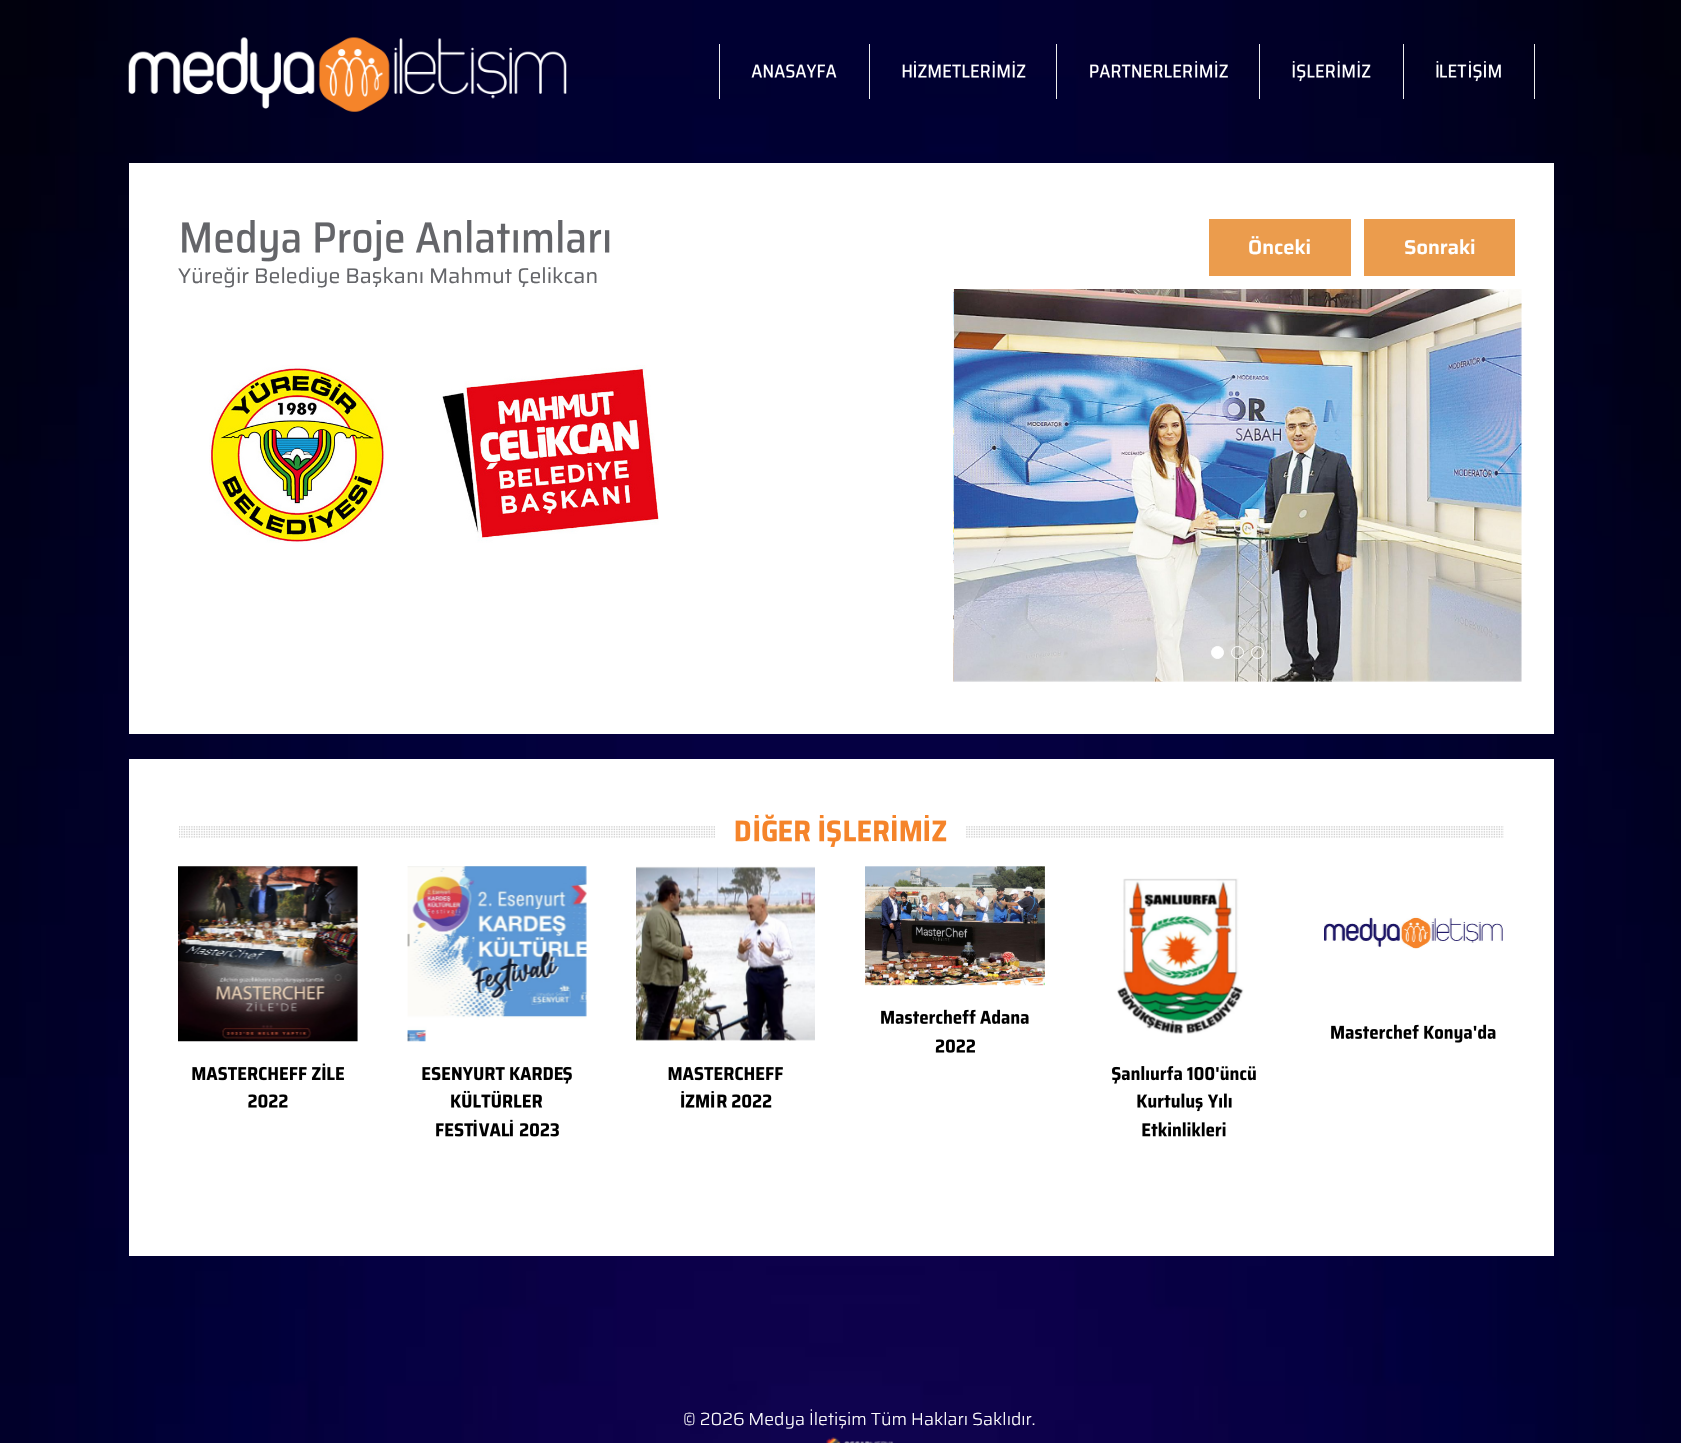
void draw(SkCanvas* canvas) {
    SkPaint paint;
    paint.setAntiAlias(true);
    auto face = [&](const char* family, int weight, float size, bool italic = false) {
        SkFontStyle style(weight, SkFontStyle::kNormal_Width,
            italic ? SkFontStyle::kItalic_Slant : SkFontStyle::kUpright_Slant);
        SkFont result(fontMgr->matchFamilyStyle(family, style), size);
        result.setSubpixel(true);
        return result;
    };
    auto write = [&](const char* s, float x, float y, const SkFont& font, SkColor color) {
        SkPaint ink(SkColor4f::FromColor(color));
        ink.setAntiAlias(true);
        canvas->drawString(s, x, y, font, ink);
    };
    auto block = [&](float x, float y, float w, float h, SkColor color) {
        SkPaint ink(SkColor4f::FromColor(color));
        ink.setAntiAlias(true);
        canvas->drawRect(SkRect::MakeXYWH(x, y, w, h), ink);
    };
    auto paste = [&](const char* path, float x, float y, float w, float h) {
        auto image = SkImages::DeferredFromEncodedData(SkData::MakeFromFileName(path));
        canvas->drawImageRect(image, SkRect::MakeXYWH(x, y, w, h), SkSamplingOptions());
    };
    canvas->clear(SK_ColorWHITE);
    paste("pic1.png", 0, 0, 1681, 1443);
    paste("pic2.png", 128, 37, 439, 75);
    block(869, 44, 1, 55, SkColorSetRGB(238, 238, 238));
    block(719, 44, 1, 55, SkColorSetRGB(238, 238, 238));
    paste("pic3.png", 751, 64, 86, 14);
    block(1056, 44, 1, 55, SkColorSetRGB(238, 238, 238));
    paste("pic4.png", 902, 64, 10, 14);
    paste("pic5.png", 914, 61, 2, 17);
    paste("pic6.png", 918, 64, 72, 14);
    paste("pic7.png", 992, 61, 3, 17);
    paste("pic8.png", 997, 64, 13, 14);
    paste("pic9.png", 1012, 61, 3, 17);
    paste("pic10.png", 1017, 64, 9, 14);
    block(1259, 44, 1, 55, SkColorSetRGB(238, 238, 238));
    paste("pic11.png", 1090, 64, 103, 14);
    paste("pic12.png", 1195, 61, 3, 17);
    paste("pic13.png", 1200, 64, 13, 14);
    paste("pic12.png", 1215, 61, 3, 17);
    paste("pic14.png", 1219, 64, 9, 14);
    block(1403, 44, 1, 55, SkColorSetRGB(238, 238, 238));
    paste("pic15.png", 1292, 61, 14, 21);
    paste("pic16.png", 1307, 64, 28, 14);
    paste("pic17.png", 1337, 61, 3, 17);
    paste("pic18.png", 1342, 64, 13, 14);
    paste("pic19.png", 1357, 61, 3, 17);
    paste("pic20.png", 1362, 64, 9, 14);
    block(1534, 44, 1, 55, SkColorSetRGB(238, 238, 238));
    paste("pic21.png", 1436, 61, 3, 17);
    paste("pic22.png", 1440, 64, 27, 14);
    paste("pic23.png", 1469, 61, 17, 21);
    paste("pic24.png", 1488, 64, 13, 14);
    block(129, 163, 1425, 571, SK_ColorWHITE);
    block(1209, 219, 142, 57, SkColorSetRGB(235, 156, 77));
    auto kFont1 = face("Saira", 600, 20);
    write("Önceki", 1248, 254, kFont1, SK_ColorWHITE);
    block(1364, 219, 151, 57, SkColorSetRGB(235, 156, 77));
    write("Sonraki", 1404, 254, kFont1, SK_ColorWHITE);
    paste("pic25.png", 182, 220, 428, 42);
    auto kFont2 = face("Saira", 400, 21.25f);
    write("Yüreğir Belediye Başkanı Mahmut Çelikcan", 178, 283, kFont2, SkColorSetRGB(100, 101, 105));
    paste("pic26.png", 209, 365, 450, 179);
    paste("pic27.png", 953, 289, 2, 393);
    paste("pic28.png", 954, 289, 568, 393);
    paint.setColor(SK_ColorWHITE);
    canvas->drawCircle(1217.5f, 652.5f, 6, paint);
    paint.setStyle(SkPaint::kStroke_Style);
    paint.setStrokeWidth(1);
    canvas->drawCircle(1217.5f, 652.5f, 6, paint);
    canvas->drawCircle(1237.5f, 652.5f, 6, paint);
    canvas->drawCircle(1257.5f, 652.5f, 6, paint);
    block(129, 759, 1425, 497, SK_ColorWHITE);
    paste("pic29.png", 179, 826, 1325, 12);
    block(715, 826, 251, 12, SK_ColorWHITE);
    paste("pic30.png", 735, 820, 16, 22);
    paste("pic31.png", 754, 814, 23, 28);
    paste("pic32.png", 779, 820, 31, 22);
    paste("pic33.png", 819, 815, 22, 32);
    paste("pic34.png", 844, 820, 45, 22);
    paint.setStyle(SkPaint::kFill_Style);
    paint.setColor(SkColorSetRGB(245, 132, 42));
    canvas->drawPath(SkPathBuilder().moveTo(892, 841).lineTo(892, 820.5f).lineTo(896.5f, 820.5f).lineTo(896.5f, 841).close().moveTo(892.5f, 818).lineTo(892.5f, 815).lineTo(896, 815).lineTo(896, 818).close().detach(), paint);
    paste("pic35.png", 900, 820, 22, 22);
    canvas->drawPath(SkPathBuilder().moveTo(924.5f, 841).lineTo(924.5f, 820.5f).lineTo(929, 820.5f).lineTo(929, 841).close().moveTo(925, 818).lineTo(925, 815).lineTo(928.5f, 815).lineTo(928.5f, 818).close().detach(), paint);
    paste("pic36.png", 932, 820, 15, 22);
    paste("pic37.png", 178, 866, 180, 176);
    paste("pic38.png", 192, 1066, 129, 15);
    paste("pic39.png", 322, 1063, 4, 17);
    paste("pic40.png", 327, 1067, 17, 13);
    paste("pic41.png", 248, 1094, 40, 14);
    paste("pic42.png", 407, 866, 180, 176);
    paste("pic43.png", 422, 1066, 141, 15);
    paste("pic44.png", 563, 1066, 9, 18);
    paste("pic45.png", 451, 1090, 92, 18);
    paste("pic46.png", 436, 1123, 38, 14);
    paste("pic47.png", 473, 1119, 4, 18);
    paste("pic48.png", 479, 1123, 31, 14);
    paste("pic49.png", 509, 1119, 4, 18);
    paste("pic50.png", 519, 1123, 40, 14);
    paste("pic51.png", 636, 866, 179, 175);
    paste("pic52.png", 668, 1066, 115, 15);
    paste("pic53.png", 681, 1091, 4, 17);
    paste("pic54.png", 685, 1094, 24, 14);
    paste("pic53.png", 711, 1091, 4, 17);
    paste("pic55.png", 717, 1094, 10, 14);
    paste("pic56.png", 732, 1094, 40, 14);
    paste("pic57.png", 865, 866, 180, 120);
    paste("pic58.png", 881, 1009, 148, 15);
    paste("pic59.png", 935, 1039, 40, 14);
    paste("pic60.png", 1117, 878, 127, 156);
    paste("pic61.png", 1112, 1066, 9, 18);
    paste("pic62.png", 1121, 1066, 135, 15);
    paste("pic63.png", 1137, 1093, 58, 15);
    paste("pic64.png", 1195, 1097, 8, 15);
    paste("pic65.png", 1207, 1093, 25, 15);
    paste("pic66.png", 1142, 1122, 84, 15);
    paste("pic67.png", 1324, 916, 179, 33);
    paste("pic68.png", 1331, 1024, 165, 19);
    auto kFont3 = face("Saira", 300, 17.5f);
    write("© 2026 Medya İletişim Tüm Hakları Saklıdır.", 683, 1425, kFont3, SK_ColorWHITE);
    paste("pic69.png", 826, 1437, 68, 6);
}
